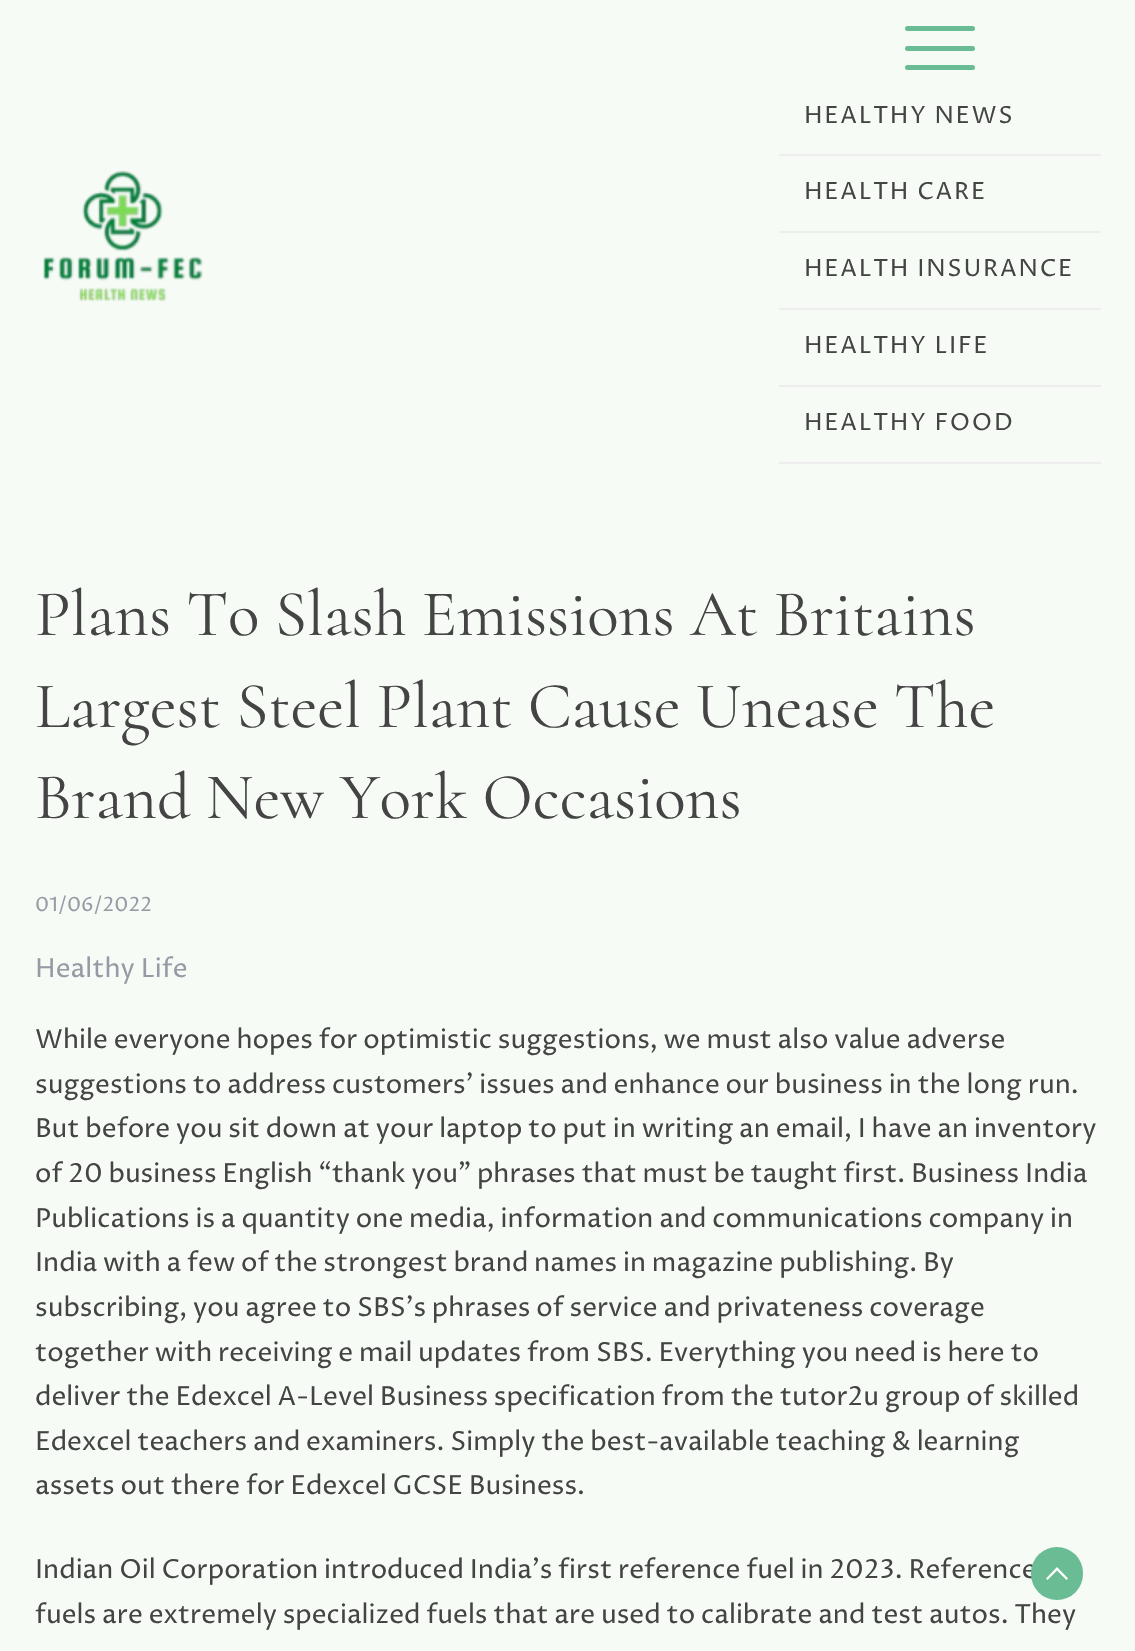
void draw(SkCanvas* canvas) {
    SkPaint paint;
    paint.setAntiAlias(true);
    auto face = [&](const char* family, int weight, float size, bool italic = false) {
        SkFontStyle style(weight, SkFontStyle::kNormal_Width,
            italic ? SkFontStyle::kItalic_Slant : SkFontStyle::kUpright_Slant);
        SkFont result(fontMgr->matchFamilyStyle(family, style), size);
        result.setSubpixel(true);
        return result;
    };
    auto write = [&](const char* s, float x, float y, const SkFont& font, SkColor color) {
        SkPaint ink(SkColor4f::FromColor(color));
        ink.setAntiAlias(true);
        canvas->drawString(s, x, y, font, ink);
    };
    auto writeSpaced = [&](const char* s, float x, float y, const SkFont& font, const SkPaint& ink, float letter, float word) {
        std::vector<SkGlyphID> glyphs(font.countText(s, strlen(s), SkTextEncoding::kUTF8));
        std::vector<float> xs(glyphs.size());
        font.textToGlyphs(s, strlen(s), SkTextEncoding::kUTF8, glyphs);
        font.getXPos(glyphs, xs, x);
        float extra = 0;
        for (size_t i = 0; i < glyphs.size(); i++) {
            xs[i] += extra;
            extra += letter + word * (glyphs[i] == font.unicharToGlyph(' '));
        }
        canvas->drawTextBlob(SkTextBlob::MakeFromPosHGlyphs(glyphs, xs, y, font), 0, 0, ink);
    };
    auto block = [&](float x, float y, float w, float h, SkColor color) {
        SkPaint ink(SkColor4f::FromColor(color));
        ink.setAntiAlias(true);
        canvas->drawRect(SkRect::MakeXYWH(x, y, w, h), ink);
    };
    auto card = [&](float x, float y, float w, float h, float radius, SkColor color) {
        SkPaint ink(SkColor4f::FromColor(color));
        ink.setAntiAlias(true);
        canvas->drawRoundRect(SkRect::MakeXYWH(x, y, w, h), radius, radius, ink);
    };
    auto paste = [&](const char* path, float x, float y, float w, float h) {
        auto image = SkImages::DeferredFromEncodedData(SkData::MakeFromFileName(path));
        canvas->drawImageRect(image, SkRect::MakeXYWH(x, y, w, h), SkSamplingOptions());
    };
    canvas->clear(SkColorSetRGB(246, 251, 246));
    paste("pic1.png", 43, 170, 160, 132);
    card(905, 26, 70, 5, 2.5f, SkColorSetRGB(105, 188, 147));
    card(905, 46, 70, 5, 2.5f, SkColorSetRGB(105, 188, 147));
    card(905, 65, 70, 5, 2.5f, SkColorSetRGB(105, 188, 147));
    block(779, 154, 322, 2, SkColorSetRGB(238, 238, 238));
    auto kFont1 = face("Proza Libre", 400, 23.6f);
    paint.setColor(SkColorSetRGB(68, 68, 68));
    writeSpaced("HEALTHY NEWS", 804, 123, kFont1, paint, 1.75f, 0);
    block(779, 231, 322, 2, SkColorSetRGB(238, 238, 238));
    writeSpaced("HEALTH CARE", 804, 199, kFont1, paint, 1.75f, 0);
    block(779, 308, 322, 2, SkColorSetRGB(238, 238, 238));
    writeSpaced("HEALTH INSURANCE", 804, 276, kFont1, paint, 1.75f, 0);
    block(779, 385, 322, 2, SkColorSetRGB(238, 238, 238));
    writeSpaced("HEALTHY LIFE", 804, 353, kFont1, paint, 1.75f, 0);
    block(779, 462, 322, 2, SkColorSetRGB(238, 238, 238));
    writeSpaced("HEALTHY FOOD", 804, 430, kFont1, paint, 1.75f, 0);
    auto kFont2 = face("Cormorant", 400, 65.6f);
    write("Plans To Slash Emissions At Britains", 35, 635, kFont2, SkColorSetRGB(68, 68, 68));
    write("Largest Steel Plant Cause Unease The", 35, 727, kFont2, SkColorSetRGB(68, 68, 68));
    write("Brand New York Occasions", 35, 818, kFont2, SkColorSetRGB(68, 68, 68));
    auto kFont3 = face("Proza Libre", 400, 19.75f);
    write("01/06/2022", 35, 911, kFont3, SkColorSetRGB(150, 154, 165));
    auto kFont4 = face("Proza Libre", 400, 26.25f);
    write("Healthy Life", 35, 977, kFont4, SkColorSetRGB(150, 154, 165));
    write("While everyone hopes for optimistic suggestions, we must also value adverse", 35, 1048, kFont4, SkColorSetRGB(68, 68, 68));
    write("suggestions to address customers’ issues and enhance our business in the long run.", 35, 1093, kFont4, SkColorSetRGB(68, 68, 68));
    write("But before you sit down at your laptop to put in writing an email, I have an inventory", 35, 1137, kFont4, SkColorSetRGB(68, 68, 68));
    write("of 20 business English “thank you” phrases that must be taught first. Business India", 35, 1182, kFont4, SkColorSetRGB(68, 68, 68));
    write("Publications is a quantity one media, information and communications company in", 35, 1227, kFont4, SkColorSetRGB(68, 68, 68));
    write("India with a few of the strongest brand names in magazine publishing. By", 35, 1271, kFont4, SkColorSetRGB(68, 68, 68));
    write("subscribing, you agree to SBS’s phrases of service and privateness coverage", 35, 1316, kFont4, SkColorSetRGB(68, 68, 68));
    write("together with receiving e mail updates from SBS. Everything you need is here to", 35, 1361, kFont4, SkColorSetRGB(68, 68, 68));
    write("deliver the Edexcel A-Level Business specification from the tutor2u group of skilled", 35, 1405, kFont4, SkColorSetRGB(68, 68, 68));
    write("Edexcel teachers and examiners. Simply the best-available teaching & learning", 35, 1450, kFont4, SkColorSetRGB(68, 68, 68));
    write("assets out there for Edexcel GCSE Business.", 35, 1494, kFont4, SkColorSetRGB(68, 68, 68));
    write("Indian Oil Corporation introduced India’s first reference fuel in 2023. Reference", 35, 1578, kFont4, SkColorSetRGB(68, 68, 68));
    write("fuels are extremely specialized fuels that are used to calibrate and test autos. They", 35, 1623, kFont4, SkColorSetRGB(68, 68, 68));
    card(1031, 1547, 52, 53, 26, SkColorSetRGB(105, 188, 147));
    paint.setColor(SK_ColorWHITE);
    canvas->drawPath(SkPathBuilder().moveTo(1068, 1578.5f).lineTo(1066.5f, 1580).lineTo(1057, 1570.5f).lineTo(1047.5f, 1580).lineTo(1046, 1578.5f).lineTo(1057, 1567).lineTo(1068, 1578.5f).detach(), paint);
}
